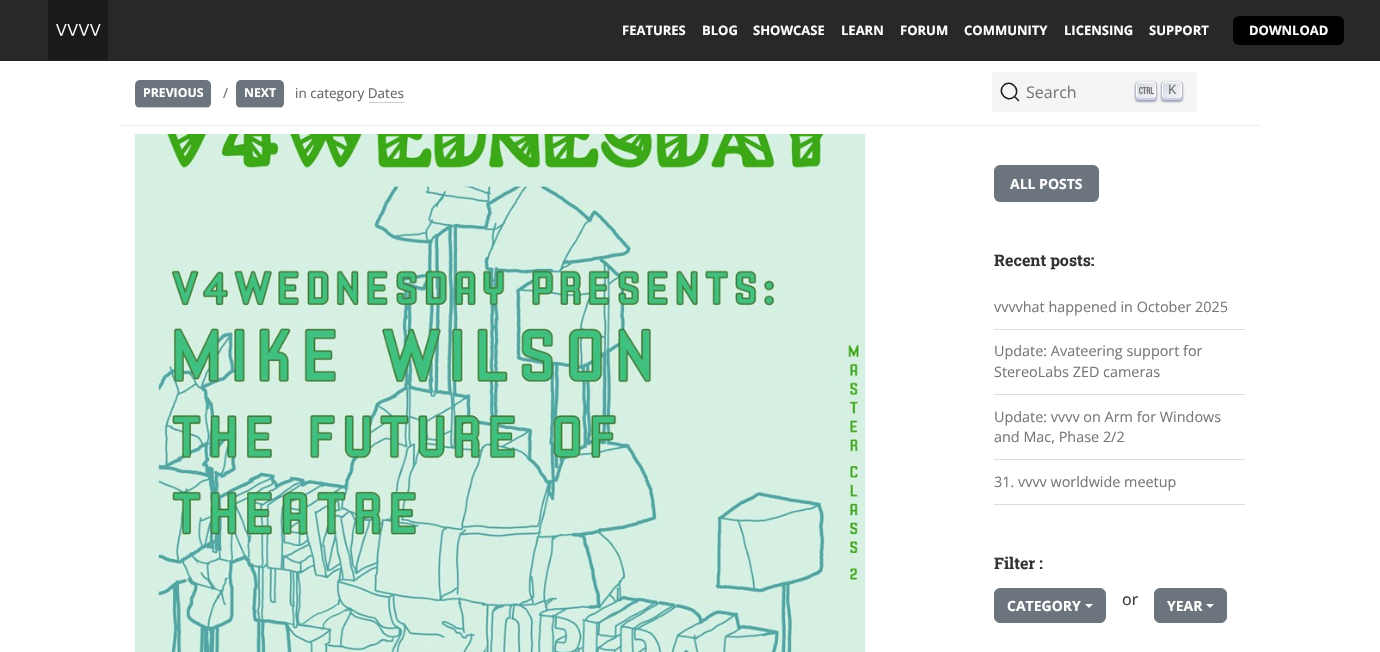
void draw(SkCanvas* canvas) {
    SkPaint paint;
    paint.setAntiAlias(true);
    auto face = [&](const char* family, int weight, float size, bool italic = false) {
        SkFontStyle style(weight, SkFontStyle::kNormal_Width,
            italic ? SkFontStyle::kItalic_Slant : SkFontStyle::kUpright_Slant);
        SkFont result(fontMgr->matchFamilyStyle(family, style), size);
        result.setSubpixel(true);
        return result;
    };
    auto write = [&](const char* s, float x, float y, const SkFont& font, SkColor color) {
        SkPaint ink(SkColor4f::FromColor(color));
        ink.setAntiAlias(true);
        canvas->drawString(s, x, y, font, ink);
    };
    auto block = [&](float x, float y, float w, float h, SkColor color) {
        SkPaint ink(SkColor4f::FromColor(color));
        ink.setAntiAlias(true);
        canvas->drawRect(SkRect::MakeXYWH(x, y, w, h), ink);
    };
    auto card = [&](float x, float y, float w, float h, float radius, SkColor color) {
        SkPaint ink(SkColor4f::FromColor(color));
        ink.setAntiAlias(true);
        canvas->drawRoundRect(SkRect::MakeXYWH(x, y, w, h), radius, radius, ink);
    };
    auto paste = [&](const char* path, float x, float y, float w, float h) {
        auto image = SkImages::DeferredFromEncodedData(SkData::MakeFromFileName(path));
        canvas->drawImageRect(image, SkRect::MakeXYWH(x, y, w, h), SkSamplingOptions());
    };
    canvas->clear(SK_ColorWHITE);
    block(0, 0, 1380, 60, SkColorSetRGB(40, 40, 40));
    block(0, 60, 1380, 1, SkColorSetRGB(34, 34, 34));
    paste("pic1.png", 48, 0, 60, 60);
    auto kFont1 = face("Open Sans", 700, 13);
    write("FEATURES", 622, 35, kFont1, SK_ColorWHITE);
    write("BLOG", 702, 35, kFont1, SK_ColorWHITE);
    write("SHOWCASE", 753, 35, kFont1, SK_ColorWHITE);
    write("LEARN", 841, 35, kFont1, SK_ColorWHITE);
    write("FORUM", 900, 35, kFont1, SK_ColorWHITE);
    write("COMMUNITY", 964, 35, kFont1, SK_ColorWHITE);
    write("LICENSING", 1064, 35, kFont1, SK_ColorWHITE);
    write("SUPPORT", 1149, 35, kFont1, SK_ColorWHITE);
    card(1233, 16, 111, 29, 6, SK_ColorBLACK);
    write("DOWNLOAD", 1249, 35, kFont1, SK_ColorWHITE);
    block(120, 125, 1140, 1, SkColorSetRGB(238, 238, 238));
    card(135, 80, 76, 28, 5, SkColorSetRGB(108, 117, 125));
    block(138, 107, 71, 1, SkColorSetRGB(204, 204, 204));
    auto kFont2 = face("Open Sans", 700, 12.25f);
    write("PREVIOUS", 143, 97, kFont2, SK_ColorWHITE);
    auto kFont3 = face("Open Sans", 400, 13.5f);
    write("/", 223, 98, kFont3, SkColorSetRGB(102, 102, 102));
    card(236, 80, 48, 28, 5, SkColorSetRGB(108, 117, 125));
    block(239, 107, 43, 1, SkColorSetRGB(204, 204, 204));
    write("NEXT", 244, 97, kFont2, SK_ColorWHITE);
    write("in category Dates", 295, 98, kFont3, SkColorSetRGB(102, 102, 102));
    block(369, 102, 36, 1, SkColorSetRGB(204, 204, 204));
    card(992, 72, 205, 40, 4, SkColorSetRGB(245, 245, 245));
    paint.setStyle(SkPaint::kStroke_Style);
    paint.setStrokeWidth(1.6f);
    paint.setStrokeCap(SkPaint::kRound_Cap);
    paint.setStrokeJoin(SkPaint::kRound_Join);
    paint.setColor(SkColorSetRGB(28, 30, 33));
    canvas->drawPath(SkPathBuilder().moveTo(1014.5f, 96.5f).lineTo(1018.5f, 100.5f).lineTo(1014.5f, 96.5f).cubicTo(1007.5f, 103.5f, 996.5f, 92.5f, 1003.5f, 85.5f).cubicTo(1010.5f, 78.5f, 1021.5f, 89.5f, 1014.5f, 96.5f).close().detach(), paint);
    auto kFont4 = face("Open Sans", 400, 16);
    write("Search", 1026, 98, kFont4, SkColorSetRGB(119, 119, 119));
    paint.setStyle(SkPaint::kFill_Style);
    paint.setColor(SkColorSetARGB(102, 30, 35, 90));
    paint.setMaskFilter(SkMaskFilter::MakeBlur(kNormal_SkBlurStyle, 1));
    canvas->drawRoundRect(SkRect::MakeXYWH(1135, 82, 22, 20), 4, 4, paint);
    paint.setMaskFilter(nullptr);
    {
        const SkColor colors[] = {SkColorSetRGB(213, 219, 228), SkColorSetRGB(248, 248, 248)};
        const float stops[] = {0, 1};
        const SkPoint ends[] = {{1137, 82}, {1156, 101}};
        paint.setShader(SkGradientShader::MakeLinear(ends, colors, stops, 2, SkTileMode::kClamp));
        paint.setAlpha(255);
    }
    canvas->drawRoundRect(SkRect::MakeXYWH(1136.5f, 82.5f, 19, 17), 2.5f, 2.5f, paint);
    paint.setStyle(SkPaint::kStroke_Style);
    paint.setStrokeWidth(1);
    paint.setStrokeCap(SkPaint::kButt_Cap);
    paint.setStrokeJoin(SkPaint::kMiter_Join);
    paint.setShader(nullptr);
    paint.setColor(SK_ColorWHITE);
    canvas->drawRoundRect(SkRect::MakeXYWH(1136.5f, 82.5f, 19, 17), 2.5f, 2.5f, paint);
    paint.setStyle(SkPaint::kFill_Style);
    paint.setColor(SkColorSetRGB(205, 205, 230));
    canvas->drawPath(SkPathBuilder().moveTo(1156, 94.5f).cubicTo(1156, 97, 1154.5f, 98, 1151, 98).lineTo(1139, 98).cubicTo(1137, 98, 1136, 96.5f, 1136, 94.5f).lineTo(1136, 97).cubicTo(1136, 98.5f, 1137.5f, 100, 1139, 100).lineTo(1153, 100).cubicTo(1154.5f, 100, 1156, 98.5f, 1156, 97).close().detach(), paint);
    paste("pic2.png", 1139, 86, 15, 9);
    paint.setColor(SkColorSetARGB(102, 30, 35, 90));
    paint.setMaskFilter(SkMaskFilter::MakeBlur(kNormal_SkBlurStyle, 1));
    canvas->drawRoundRect(SkRect::MakeXYWH(1161, 82, 22, 20), 4, 4, paint);
    paint.setMaskFilter(nullptr);
    {
        const SkColor colors[] = {SkColorSetRGB(213, 219, 228), SkColorSetRGB(248, 248, 248)};
        const float stops[] = {0, 1};
        const SkPoint ends[] = {{1163, 82}, {1182, 101}};
        paint.setShader(SkGradientShader::MakeLinear(ends, colors, stops, 2, SkTileMode::kClamp));
        paint.setAlpha(255);
    }
    canvas->drawRoundRect(SkRect::MakeXYWH(1162.5f, 82.5f, 19, 17), 2.5f, 2.5f, paint);
    paint.setStyle(SkPaint::kStroke_Style);
    paint.setShader(nullptr);
    paint.setColor(SK_ColorWHITE);
    canvas->drawRoundRect(SkRect::MakeXYWH(1162.5f, 82.5f, 19, 17), 2.5f, 2.5f, paint);
    paint.setStyle(SkPaint::kFill_Style);
    paint.setColor(SkColorSetRGB(205, 205, 230));
    canvas->drawPath(SkPathBuilder().moveTo(1182, 94.5f).cubicTo(1182, 97, 1180.5f, 98, 1177, 98).lineTo(1165, 98).cubicTo(1163, 98, 1162, 96.5f, 1162, 94.5f).lineTo(1162, 97).cubicTo(1162, 98.5f, 1163.5f, 100, 1165, 100).lineTo(1179, 100).cubicTo(1180.5f, 100, 1182, 98.5f, 1182, 97).close().detach(), paint);
    auto kFont5 = face("Liberation Mono", 400, 14);
    write("K", 1168, 94, kFont5, SkColorSetRGB(119, 119, 119));
    paste("pic3.png", 135, 134, 730, 518);
    card(994, 165, 105, 37, 6, SkColorSetRGB(108, 117, 125));
    auto kFont6 = face("Open Sans", 700, 14);
    write("ALL POSTS", 1010, 189, kFont6, SK_ColorWHITE);
    auto kFont7 = face("Roboto Slab", 700, 16);
    write("Recent posts:", 994, 266, kFont7, SkColorSetRGB(51, 51, 51));
    block(994, 329, 251, 1, SkColorSetRGB(221, 221, 221));
    auto kFont8 = face("Open Sans", 400, 14.4f);
    write("vvvvhat happened in October 2025", 994, 312, kFont8, SkColorSetRGB(119, 119, 119));
    block(994, 394, 251, 1, SkColorSetRGB(221, 221, 221));
    write("Update: Avateering support for", 994, 356, kFont8, SkColorSetRGB(119, 119, 119));
    write("StereoLabs ZED cameras", 994, 377, kFont8, SkColorSetRGB(119, 119, 119));
    block(994, 459, 251, 1, SkColorSetRGB(221, 221, 221));
    write("Update: vvvv on Arm for Windows", 994, 422, kFont8, SkColorSetRGB(119, 119, 119));
    write("and Mac, Phase 2/2", 994, 442, kFont8, SkColorSetRGB(119, 119, 119));
    block(994, 504, 251, 1, SkColorSetRGB(221, 221, 221));
    write("31. vvvv worldwide meetup", 994, 487, kFont8, SkColorSetRGB(119, 119, 119));
    write("Filter :", 994, 569, kFont7, SkColorSetRGB(51, 51, 51));
    paint.setColor(SkColorSetRGB(108, 117, 125));
    canvas->drawRoundRect(SkRect::MakeXYWH(994.5f, 588.5f, 111, 34), 5.5f, 5.5f, paint);
    paint.setStyle(SkPaint::kStroke_Style);
    canvas->drawRoundRect(SkRect::MakeXYWH(994.5f, 588.5f, 111, 34), 5.5f, 5.5f, paint);
    write("CATEGORY", 1007, 611, kFont6, SK_ColorWHITE);
    paint.setStyle(SkPaint::kFill_Style);
    paint.setColor(SK_ColorWHITE);
    canvas->drawPath(SkPathBuilder().moveTo(1085, 604).lineTo(1093, 604).lineTo(1089, 608).close().detach(), paint);
    write("or", 1122, 605, kFont4, SkColorSetRGB(51, 51, 51));
    paint.setColor(SkColorSetRGB(108, 117, 125));
    canvas->drawRoundRect(SkRect::MakeXYWH(1154.5f, 588.5f, 72, 34), 5.5f, 5.5f, paint);
    paint.setStyle(SkPaint::kStroke_Style);
    canvas->drawRoundRect(SkRect::MakeXYWH(1154.5f, 588.5f, 72, 34), 5.5f, 5.5f, paint);
    write("YEAR", 1167, 611, kFont6, SK_ColorWHITE);
    paint.setStyle(SkPaint::kFill_Style);
    paint.setColor(SK_ColorWHITE);
    canvas->drawPath(SkPathBuilder().moveTo(1206, 604).lineTo(1214, 604).lineTo(1210, 608).close().detach(), paint);
}
